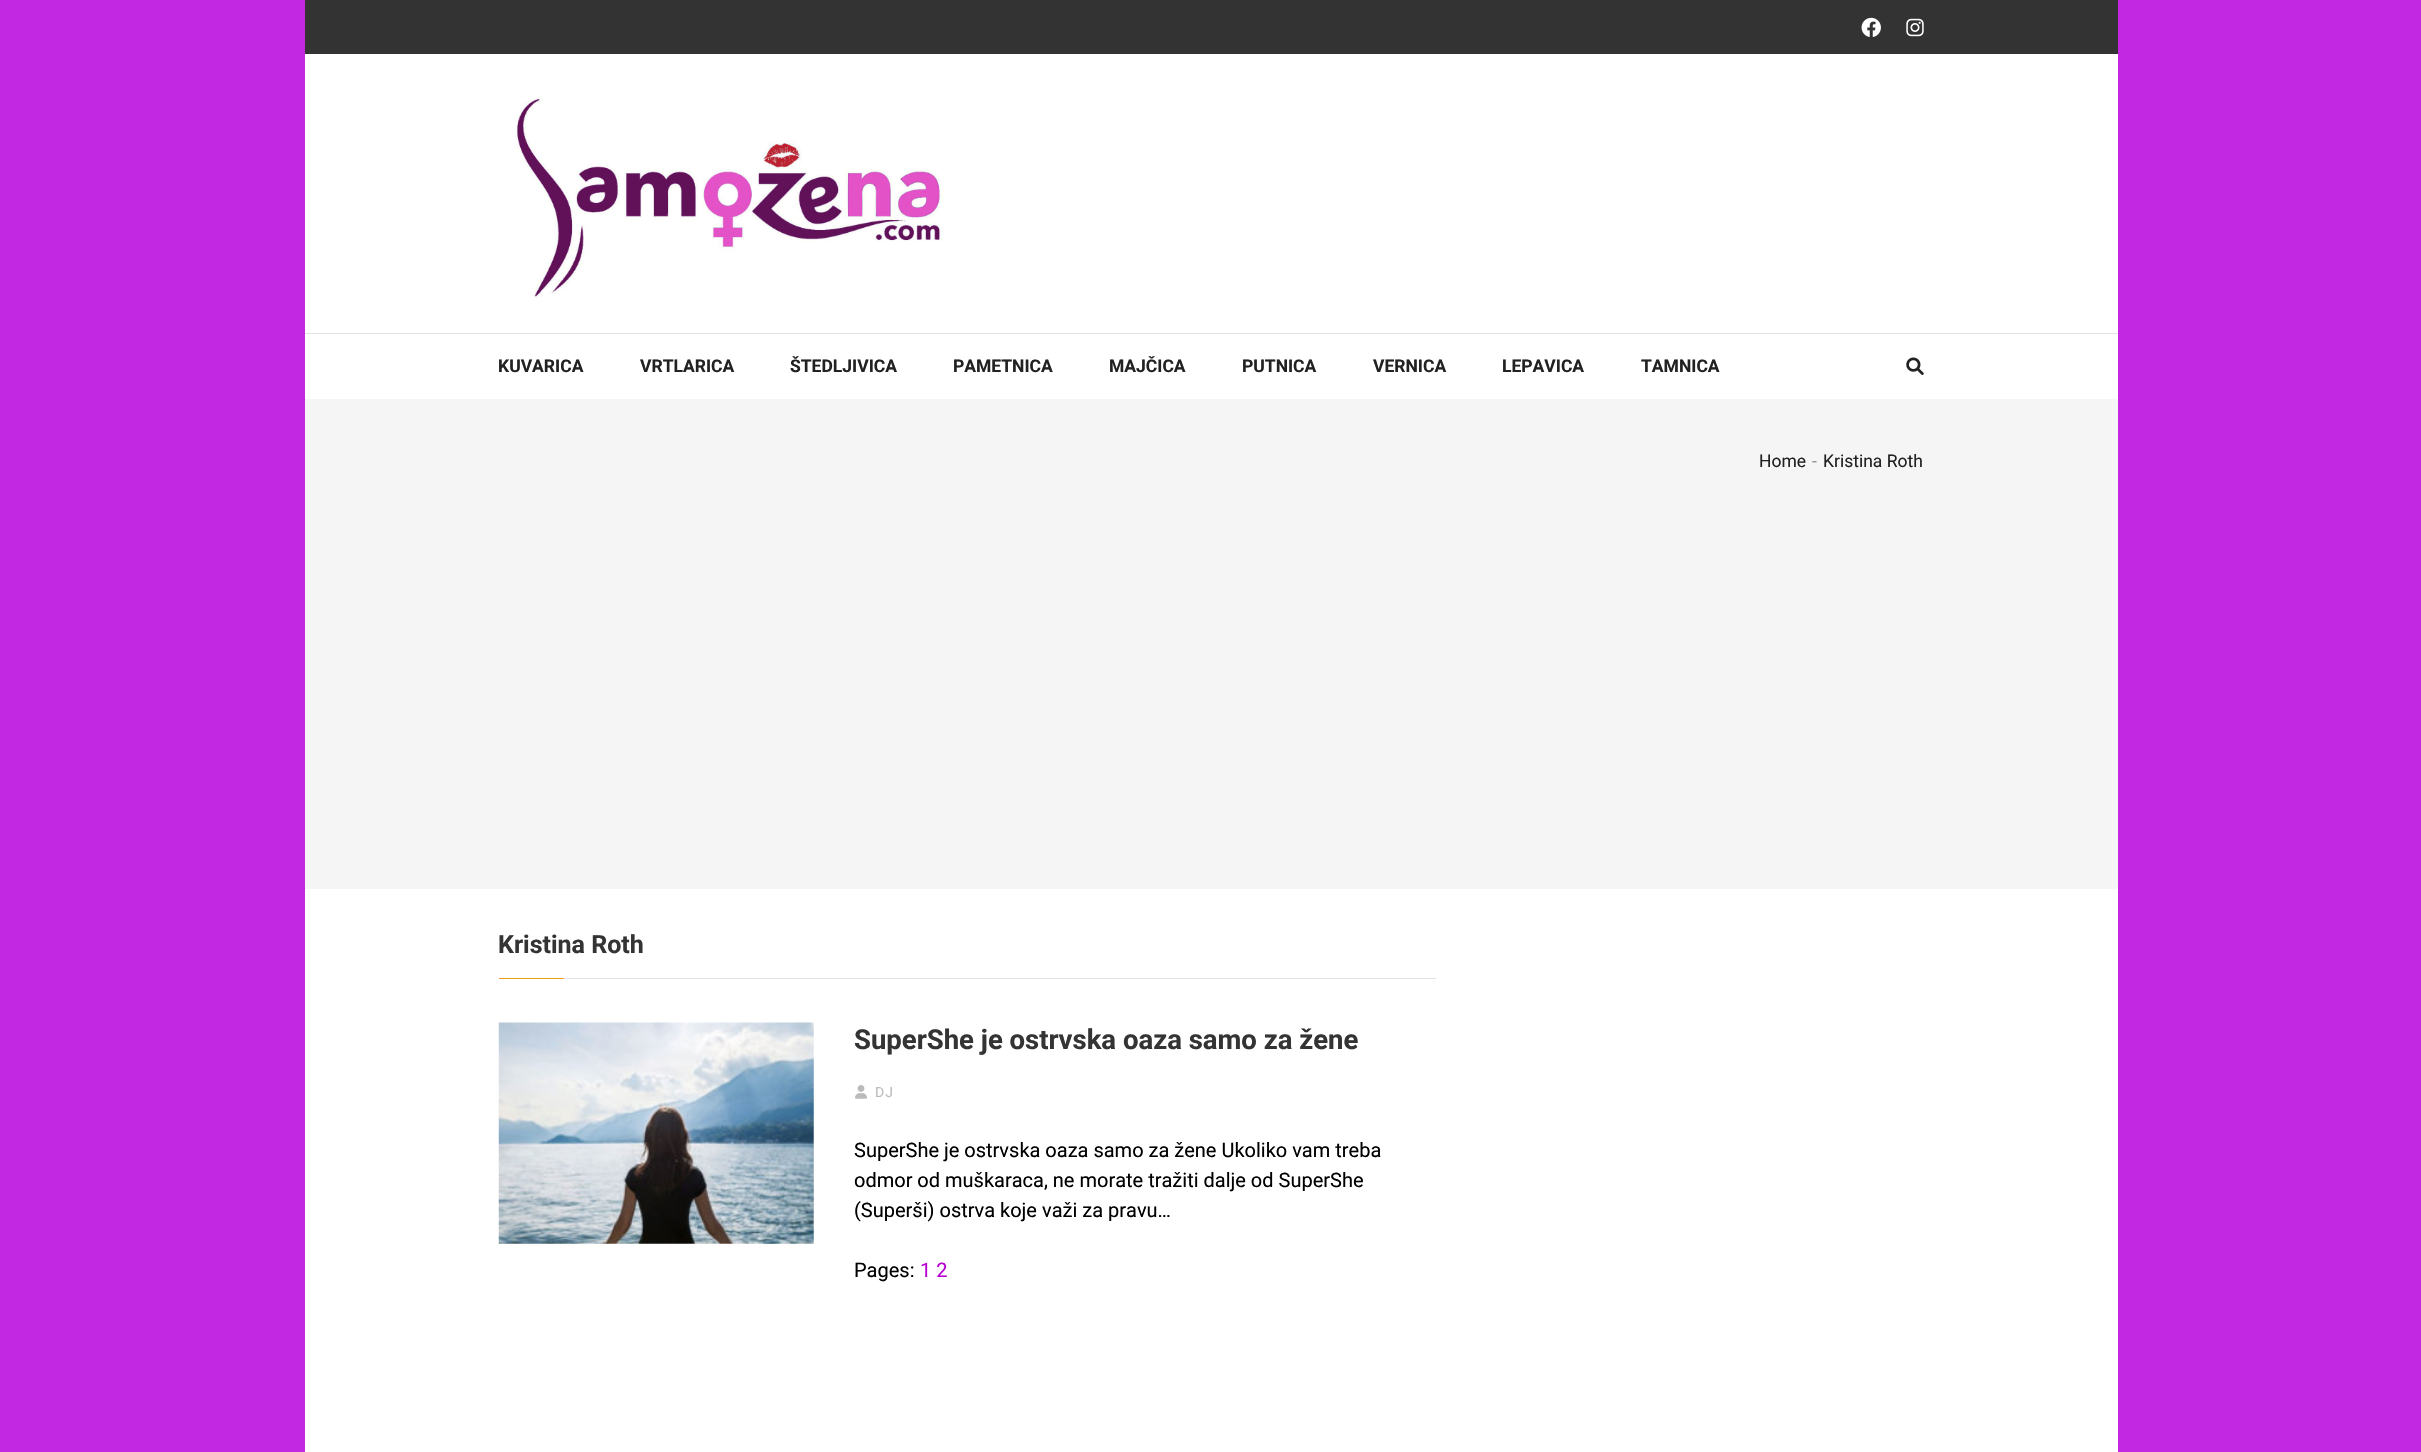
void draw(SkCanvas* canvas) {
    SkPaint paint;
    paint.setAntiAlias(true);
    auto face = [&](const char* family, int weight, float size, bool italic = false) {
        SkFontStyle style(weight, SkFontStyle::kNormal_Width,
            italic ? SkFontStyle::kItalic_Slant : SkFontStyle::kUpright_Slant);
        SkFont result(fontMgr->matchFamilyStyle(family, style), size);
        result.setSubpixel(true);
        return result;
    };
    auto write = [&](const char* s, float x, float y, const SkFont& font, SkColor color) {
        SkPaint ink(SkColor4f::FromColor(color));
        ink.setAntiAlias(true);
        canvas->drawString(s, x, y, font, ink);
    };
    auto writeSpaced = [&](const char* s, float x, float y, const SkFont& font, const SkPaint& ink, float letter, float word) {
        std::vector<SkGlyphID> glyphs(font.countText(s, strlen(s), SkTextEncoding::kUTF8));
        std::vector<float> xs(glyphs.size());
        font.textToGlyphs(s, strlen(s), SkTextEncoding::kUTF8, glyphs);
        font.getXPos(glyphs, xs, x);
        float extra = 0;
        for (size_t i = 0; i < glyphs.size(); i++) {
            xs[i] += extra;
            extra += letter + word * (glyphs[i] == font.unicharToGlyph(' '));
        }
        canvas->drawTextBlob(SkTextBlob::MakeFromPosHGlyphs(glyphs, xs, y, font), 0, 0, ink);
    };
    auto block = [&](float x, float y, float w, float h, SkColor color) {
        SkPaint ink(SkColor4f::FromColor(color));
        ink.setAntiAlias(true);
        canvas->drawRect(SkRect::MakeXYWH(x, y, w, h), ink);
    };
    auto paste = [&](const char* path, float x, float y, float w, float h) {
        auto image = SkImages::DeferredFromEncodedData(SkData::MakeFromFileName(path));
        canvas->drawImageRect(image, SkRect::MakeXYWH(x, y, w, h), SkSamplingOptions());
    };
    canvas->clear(SkColorSetRGB(194, 39, 225));
    block(305, 54, 1813, 1398, SK_ColorWHITE);
    block(305, 0, 1813, 54, SkColorSetRGB(51, 51, 51));
    paste("pic1.png", 1861, 17, 20, 20);
    paste("pic2.png", 1906, 18, 18, 19);
    block(305, 333, 1813, 1, SkColorSetRGB(227, 227, 227));
    paste("pic3.png", 515, 96, 430, 204);
    auto kFont1 = face("Roboto", 700, 17.5f);
    write("KUVARICA", 498, 372, kFont1, SkColorSetRGB(34, 34, 34));
    write("VRTLARICA", 640, 372, kFont1, SkColorSetRGB(34, 34, 34));
    write("ŠTEDLJIVICA", 790, 372, kFont1, SkColorSetRGB(34, 34, 34));
    write("PAMETNICA", 953, 372, kFont1, SkColorSetRGB(34, 34, 34));
    write("MAJČICA", 1109, 372, kFont1, SkColorSetRGB(34, 34, 34));
    write("PUTNICA", 1242, 372, kFont1, SkColorSetRGB(34, 34, 34));
    write("VERNICA", 1373, 372, kFont1, SkColorSetRGB(34, 34, 34));
    write("LEPAVICA", 1502, 372, kFont1, SkColorSetRGB(34, 34, 34));
    write("TAMNICA", 1641, 372, kFont1, SkColorSetRGB(34, 34, 34));
    paste("pic4.png", 1906, 357, 18, 18);
    block(305, 399, 1813, 490, SkColorSetRGB(245, 245, 245));
    auto kFont2 = face("Roboto", 400, 17.5f);
    write("Home", 1759, 467, kFont2, SkColorSetRGB(34, 34, 34));
    write("-", 1812, 467, kFont2, SkColorSetRGB(145, 145, 145));
    write("Kristina Roth", 1823, 467, kFont2, SkColorSetRGB(34, 34, 34));
    block(564, 978, 872, 1, SkColorSetRGB(227, 227, 227));
    auto kFont3 = face("Roboto", 700, 25);
    write("Kristina Roth", 498, 953, kFont3, SkColorSetRGB(52, 52, 52));
    block(499, 978, 65, 1, SkColorSetRGB(238, 159, 30));
    paste("pic5.png", 498, 1022, 316, 222);
    auto kFont4 = face("Roboto", 700, 27.5f);
    write("SuperShe je ostrvska oaza samo za žene", 854, 1049, kFont4, SkColorSetRGB(52, 52, 52));
    paste("pic6.png", 855, 1085, 12, 14);
    auto kFont5 = face("Roboto", 400, 14);
    paint.setColor(SkColorSetRGB(187, 187, 187));
    writeSpaced("DJ", 875, 1097, kFont5, paint, 1, 0);
    auto kFont6 = face("Roboto", 400, 20);
    write("SuperShe je ostrvska oaza samo za žene Ukoliko vam treba", 854, 1157, kFont6, SK_ColorBLACK);
    write("odmor od muškaraca, ne morate tražiti dalje od SuperShe", 854, 1187, kFont6, SK_ColorBLACK);
    write("(Superši) ostrva koje važi za pravu…", 854, 1217, kFont6, SK_ColorBLACK);
    write("Pages:", 854, 1277, kFont6, SK_ColorBLACK);
    write("1 2", 920, 1277, kFont6, SkColorSetRGB(184, 0, 209));
}
